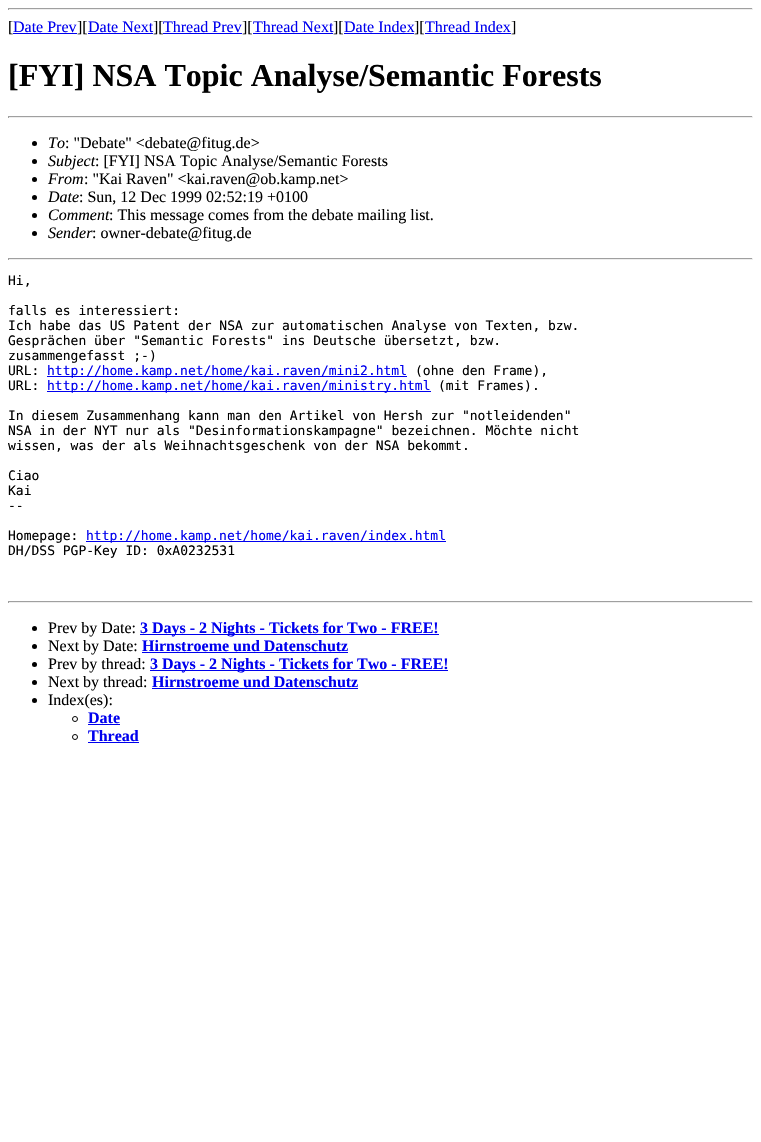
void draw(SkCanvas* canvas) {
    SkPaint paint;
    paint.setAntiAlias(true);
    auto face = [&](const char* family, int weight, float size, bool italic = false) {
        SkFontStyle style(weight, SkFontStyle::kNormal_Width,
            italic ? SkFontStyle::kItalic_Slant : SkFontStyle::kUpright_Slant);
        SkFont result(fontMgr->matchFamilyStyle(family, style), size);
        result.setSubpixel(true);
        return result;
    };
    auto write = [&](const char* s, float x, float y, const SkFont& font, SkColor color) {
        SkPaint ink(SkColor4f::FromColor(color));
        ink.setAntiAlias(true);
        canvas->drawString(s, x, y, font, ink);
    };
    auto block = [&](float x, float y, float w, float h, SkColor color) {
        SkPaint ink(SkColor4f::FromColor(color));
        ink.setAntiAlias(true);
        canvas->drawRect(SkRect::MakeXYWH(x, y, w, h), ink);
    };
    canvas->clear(SK_ColorWHITE);
    block(8, 8, 745, 1, SkColorSetRGB(159, 159, 159));
    block(752, 8, 1, 2, SkColorSetRGB(238, 238, 238));
    block(8, 9, 745, 1, SkColorSetRGB(238, 238, 238));
    block(8, 8, 1, 2, SkColorSetRGB(159, 159, 159));
    auto kFont1 = face("Liberation Serif", 400, 16);
    write("[", 8, 32, kFont1, SK_ColorBLACK);
    write("Date Prev", 13, 32, kFont1, SkColorSetRGB(0, 0, 238));
    block(13, 33, 64, 1, SkColorSetRGB(0, 0, 238));
    write("][", 77, 32, kFont1, SK_ColorBLACK);
    write("Date Next", 88, 32, kFont1, SkColorSetRGB(0, 0, 238));
    block(88, 33, 65, 1, SkColorSetRGB(0, 0, 238));
    write("][", 153, 32, kFont1, SK_ColorBLACK);
    write("Thread Prev", 163, 32, kFont1, SkColorSetRGB(0, 0, 238));
    block(163, 33, 79, 1, SkColorSetRGB(0, 0, 238));
    write("][", 242, 32, kFont1, SK_ColorBLACK);
    write("Thread Next", 253, 32, kFont1, SkColorSetRGB(0, 0, 238));
    block(253, 33, 80, 1, SkColorSetRGB(0, 0, 238));
    write("][", 333, 32, kFont1, SK_ColorBLACK);
    write("Date Index", 344, 32, kFont1, SkColorSetRGB(0, 0, 238));
    block(344, 33, 70, 1, SkColorSetRGB(0, 0, 238));
    write("][", 414, 32, kFont1, SK_ColorBLACK);
    write("Thread Index", 425, 32, kFont1, SkColorSetRGB(0, 0, 238));
    block(425, 33, 86, 1, SkColorSetRGB(0, 0, 238));
    write("]", 511, 32, kFont1, SK_ColorBLACK);
    auto kFont2 = face("Liberation Serif", 700, 32);
    write("[FYI] NSA Topic Analyse/Semantic Forests", 8, 86, kFont2, SK_ColorBLACK);
    block(8, 116, 745, 1, SkColorSetRGB(159, 159, 159));
    block(752, 116, 1, 2, SkColorSetRGB(238, 238, 238));
    block(8, 117, 745, 1, SkColorSetRGB(238, 238, 238));
    block(8, 116, 1, 2, SkColorSetRGB(159, 159, 159));
    paint.setColor(SK_ColorBLACK);
    canvas->drawCircle(34.5f, 143.5f, 2.5f, paint);
    auto kFont3 = face("Liberation Serif", 400, 16, true);
    write("To", 48, 148, kFont3, SK_ColorBLACK);
    write(": \"Debate\" <debate@fitug.de>", 65, 148, kFont1, SK_ColorBLACK);
    canvas->drawCircle(34.5f, 161.5f, 2.5f, paint);
    write("Subject", 48, 166, kFont3, SK_ColorBLACK);
    write(": [FYI] NSA Topic Analyse/Semantic Forests", 95, 166, kFont1, SK_ColorBLACK);
    canvas->drawCircle(34.5f, 179.5f, 2.5f, paint);
    write("From", 48, 184, kFont3, SK_ColorBLACK);
    write(": \"Kai Raven\" <kai.raven@ob.kamp.net>", 84, 184, kFont1, SK_ColorBLACK);
    canvas->drawCircle(34.5f, 197.5f, 2.5f, paint);
    write("Date", 48, 202, kFont3, SK_ColorBLACK);
    write(": Sun, 12 Dec 1999 02:52:19 +0100", 79, 202, kFont1, SK_ColorBLACK);
    canvas->drawCircle(34.5f, 215.5f, 2.5f, paint);
    write("Comment", 48, 220, kFont3, SK_ColorBLACK);
    write(": This message comes from the debate mailing list.", 109, 220, kFont1, SK_ColorBLACK);
    canvas->drawCircle(34.5f, 233.5f, 2.5f, paint);
    write("Sender", 48, 238, kFont3, SK_ColorBLACK);
    write(": owner-debate@fitug.de", 92, 238, kFont1, SK_ColorBLACK);
    block(8, 258, 745, 1, SkColorSetRGB(159, 159, 159));
    block(752, 258, 1, 2, SkColorSetRGB(238, 238, 238));
    block(8, 259, 745, 1, SkColorSetRGB(238, 238, 238));
    block(8, 258, 1, 2, SkColorSetRGB(159, 159, 159));
    auto kFont4 = face("DejaVu Sans Mono", 400, 13);
    write("Hi,", 8, 285, kFont4, SK_ColorBLACK);
    write("falls es interessiert:", 8, 315, kFont4, SK_ColorBLACK);
    write("Ich habe das US Patent der NSA zur automatischen Analyse von Texten, bzw.", 8, 330, kFont4, SK_ColorBLACK);
    write("Gesprächen über \"Semantic Forests\" ins Deutsche übersetzt, bzw.", 8, 345, kFont4, SK_ColorBLACK);
    write("zusammengefasst ;-)", 8, 360, kFont4, SK_ColorBLACK);
    write("URL:", 8, 375, kFont4, SK_ColorBLACK);
    block(47, 376, 360, 1, SkColorSetRGB(0, 0, 238));
    write("http://home.kamp.net/home/kai.raven/mini2.html", 47, 375, kFont4, SkColorSetRGB(0, 0, 238));
    write("(ohne den Frame),", 415, 375, kFont4, SK_ColorBLACK);
    write("URL:", 8, 390, kFont4, SK_ColorBLACK);
    block(47, 391, 384, 1, SkColorSetRGB(0, 0, 238));
    write("http://home.kamp.net/home/kai.raven/ministry.html", 47, 390, kFont4, SkColorSetRGB(0, 0, 238));
    write("(mit Frames).", 438, 390, kFont4, SK_ColorBLACK);
    write("In diesem Zusammenhang kann man den Artikel von Hersh zur \"notleidenden\"", 8, 420, kFont4, SK_ColorBLACK);
    write("NSA in der NYT nur als \"Desinformationskampagne\" bezeichnen. Möchte nicht", 8, 435, kFont4, SK_ColorBLACK);
    write("wissen, was der als Weihnachtsgeschenk von der NSA bekommt.", 8, 450, kFont4, SK_ColorBLACK);
    write("Ciao", 8, 480, kFont4, SK_ColorBLACK);
    write("Kai", 8, 495, kFont4, SK_ColorBLACK);
    write("--", 8, 510, kFont4, SK_ColorBLACK);
    write("Homepage:", 8, 540, kFont4, SK_ColorBLACK);
    block(86, 541, 360, 1, SkColorSetRGB(0, 0, 238));
    write("http://home.kamp.net/home/kai.raven/index.html", 86, 540, kFont4, SkColorSetRGB(0, 0, 238));
    write("DH/DSS PGP-Key ID: 0xA0232531", 8, 555, kFont4, SK_ColorBLACK);
    block(8, 601, 745, 1, SkColorSetRGB(159, 159, 159));
    block(752, 601, 1, 2, SkColorSetRGB(238, 238, 238));
    block(8, 602, 745, 1, SkColorSetRGB(238, 238, 238));
    block(8, 601, 1, 2, SkColorSetRGB(159, 159, 159));
    canvas->drawCircle(34.5f, 628.5f, 2.5f, paint);
    write("Prev by Date:", 48, 633, kFont1, SK_ColorBLACK);
    block(140, 634, 299, 1, SkColorSetRGB(0, 0, 238));
    auto kFont5 = face("Liberation Serif", 700, 16);
    write("3 Days - 2 Nights - Tickets for Two - FREE!", 140, 633, kFont5, SkColorSetRGB(0, 0, 238));
    canvas->drawCircle(34.5f, 646.5f, 2.5f, paint);
    write("Next by Date:", 48, 651, kFont1, SK_ColorBLACK);
    write("Hirnstroeme und Datenschutz", 142, 651, kFont5, SkColorSetRGB(0, 0, 238));
    block(142, 652, 206, 1, SkColorSetRGB(0, 0, 238));
    canvas->drawCircle(34.5f, 664.5f, 2.5f, paint);
    write("Prev by thread:", 48, 669, kFont1, SK_ColorBLACK);
    block(150, 670, 298, 1, SkColorSetRGB(0, 0, 238));
    write("3 Days - 2 Nights - Tickets for Two - FREE!", 150, 669, kFont5, SkColorSetRGB(0, 0, 238));
    canvas->drawCircle(34.5f, 682.5f, 2.5f, paint);
    write("Next by thread:", 48, 687, kFont1, SK_ColorBLACK);
    write("Hirnstroeme und Datenschutz", 152, 687, kFont5, SkColorSetRGB(0, 0, 238));
    block(152, 688, 206, 1, SkColorSetRGB(0, 0, 238));
    canvas->drawCircle(34.5f, 700.5f, 2.5f, paint);
    write("Index(es):", 48, 705, kFont1, SK_ColorBLACK);
    paint.setStyle(SkPaint::kStroke_Style);
    paint.setStrokeWidth(1);
    canvas->drawCircle(75, 719, 2.5f, paint);
    write("Date", 88, 723, kFont5, SkColorSetRGB(0, 0, 238));
    block(88, 724, 32, 1, SkColorSetRGB(0, 0, 238));
    canvas->drawCircle(75, 737, 2.5f, paint);
    write("Thread", 88, 741, kFont5, SkColorSetRGB(0, 0, 238));
    block(88, 742, 51, 1, SkColorSetRGB(0, 0, 238));
}
